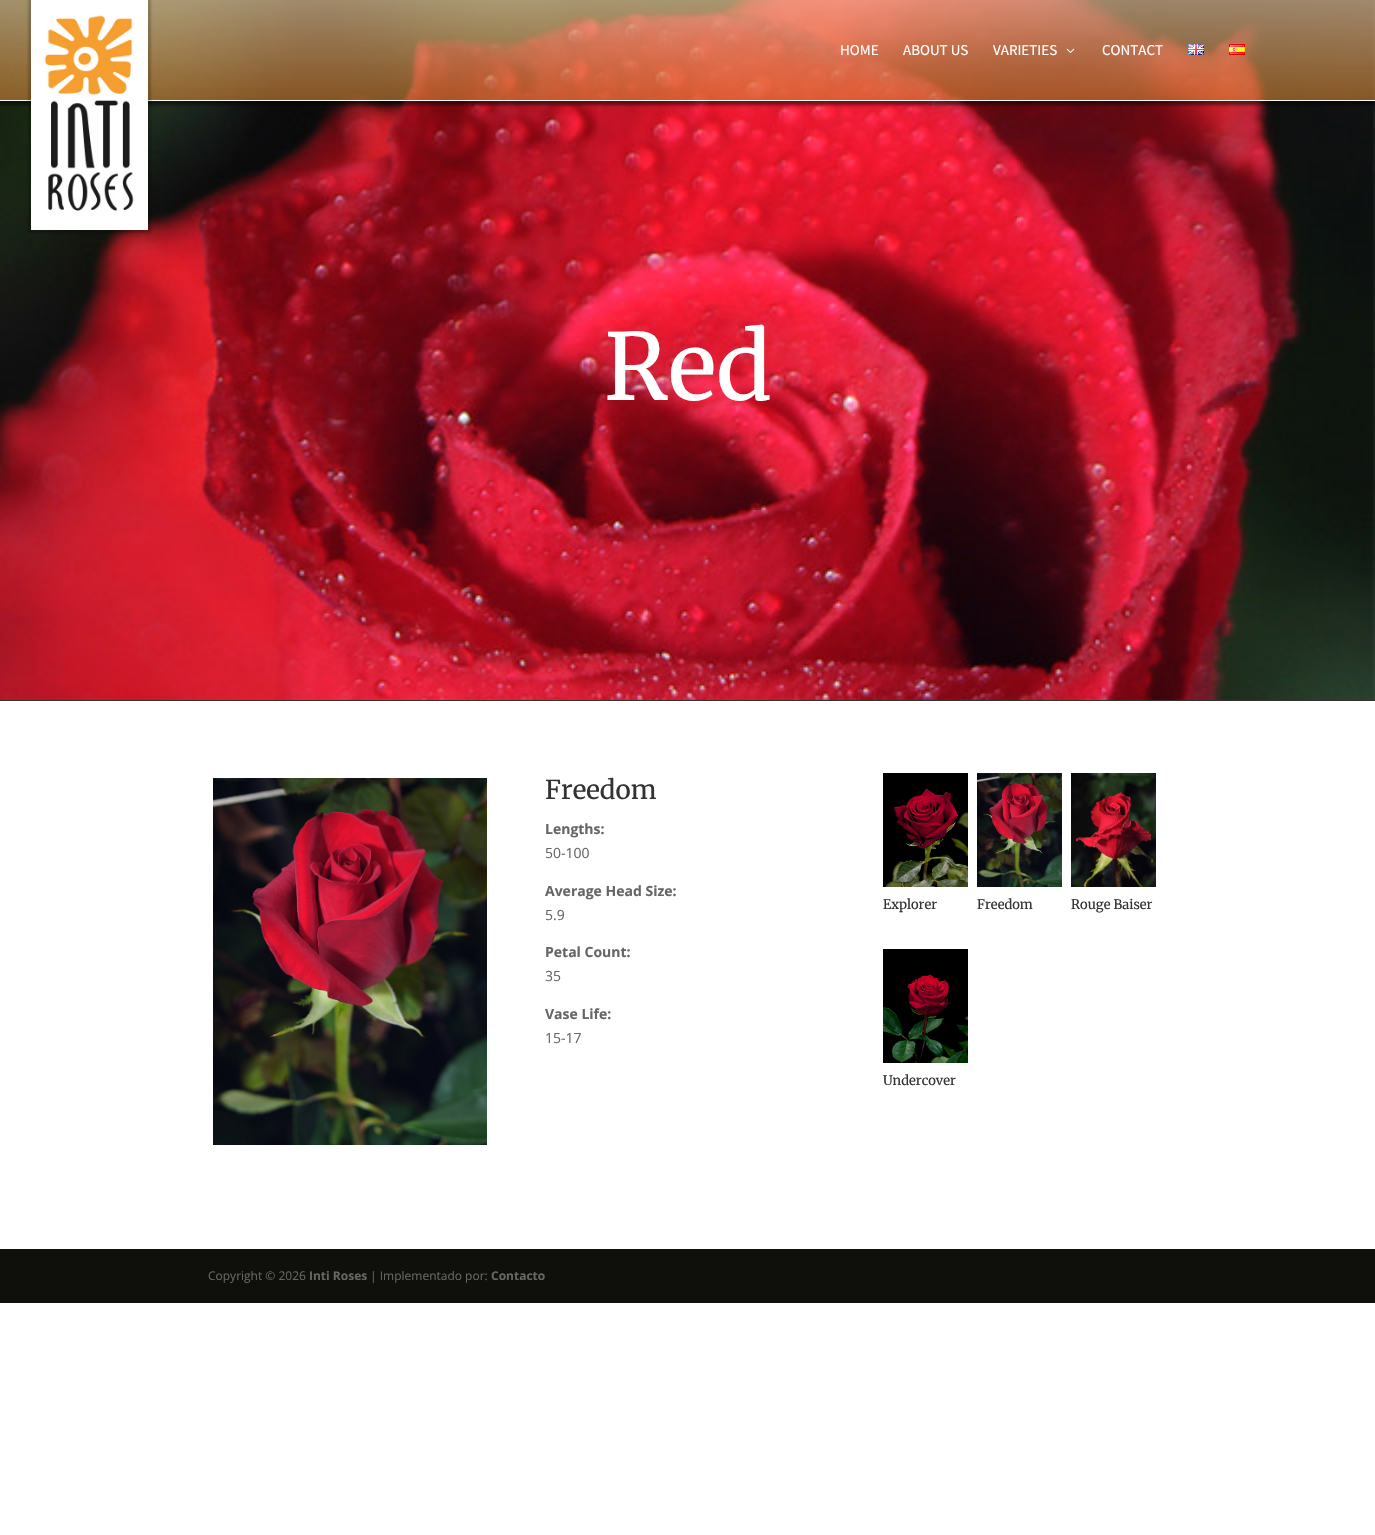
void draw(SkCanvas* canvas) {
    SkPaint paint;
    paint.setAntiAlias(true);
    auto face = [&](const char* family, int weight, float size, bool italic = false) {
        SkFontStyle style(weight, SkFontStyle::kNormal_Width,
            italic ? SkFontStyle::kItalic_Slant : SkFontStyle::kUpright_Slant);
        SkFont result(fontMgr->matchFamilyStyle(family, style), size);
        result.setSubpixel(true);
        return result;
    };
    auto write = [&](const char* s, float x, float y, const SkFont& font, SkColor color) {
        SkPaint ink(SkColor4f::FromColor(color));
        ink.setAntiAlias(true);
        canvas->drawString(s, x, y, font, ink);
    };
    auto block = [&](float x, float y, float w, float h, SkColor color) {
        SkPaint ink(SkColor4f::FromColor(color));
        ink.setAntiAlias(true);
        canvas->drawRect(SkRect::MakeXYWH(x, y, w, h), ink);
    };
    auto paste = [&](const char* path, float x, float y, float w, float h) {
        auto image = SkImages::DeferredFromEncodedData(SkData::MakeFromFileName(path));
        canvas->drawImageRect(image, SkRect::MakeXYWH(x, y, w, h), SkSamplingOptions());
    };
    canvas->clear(SK_ColorWHITE);
    paste("pic5.png", 0, 0, 1375, 700);
    canvas->save();
    canvas->clipRect(SkRect::MakeXYWH(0, 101, 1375, 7));
    paint.setColor(SkColorSetARGB(128, 0, 0, 0));
    paint.setMaskFilter(SkMaskFilter::MakeBlur(kNormal_SkBlurStyle, 1.5f));
    canvas->drawRect(SkRect::MakeXYWH(-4, -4, 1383, 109), paint);
    paint.setMaskFilter(nullptr);
    canvas->restore();
    {
        const SkColor colors[] = {SkColorSetARGB(166, 237, 201, 156), SkColorSetARGB(153, 214, 133, 51)};
        const float stops[] = {0, 1};
        const SkPoint ends[] = {{688, 0}, {688, 100}};
        paint.setShader(SkGradientShader::MakeLinear(ends, colors, stops, 2, SkTileMode::kClamp));
        paint.setAlpha(255);
    }
    canvas->drawRect(SkRect::MakeXYWH(0, 0, 1375, 100), paint);
    block(0, 100, 1375, 1, SK_ColorWHITE);
    paint.setShader(nullptr);
    paint.setColor(SkColorSetARGB(51, 0, 0, 0));
    paint.setMaskFilter(SkMaskFilter::MakeBlur(kNormal_SkBlurStyle, 1));
    canvas->drawRect(SkRect::MakeXYWH(28, -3, 123, 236), paint);
    paint.setMaskFilter(nullptr);
    paste("pic1.png", 31, 0, 117, 230);
    auto kFont1 = face("Source Sans Pro", 400, 15);
    write("HOME", 840, 55, kFont1, SK_ColorWHITE);
    write("ABOUT US", 903, 55, kFont1, SK_ColorWHITE);
    write("VARIETIES", 993, 55, kFont1, SK_ColorWHITE);
    paste("pic2.png", 1066, 48, 9, 5);
    write("CONTACT", 1102, 55, kFont1, SK_ColorWHITE);
    paste("pic3.png", 1188, 44, 16, 11);
    paste("pic4.png", 1229, 44, 16, 11);
    block(0, 700, 1375, 1, SkColorSetRGB(51, 51, 51));
    auto kFont2 = face("Merriweather", 400, 92);
    write("Red", 604, 400, kFont2, SK_ColorWHITE);
    paste("pic6.png", 213, 778, 274, 367);
    auto kFont3 = face("Merriweather", 400, 26);
    write("Freedom", 545, 799, kFont3, SkColorSetRGB(51, 51, 51));
    auto kFont4 = face("Open Sans", 700, 14);
    write("Lengths:", 545, 834, kFont4, SkColorSetRGB(102, 102, 102));
    auto kFont5 = face("Open Sans", 400, 14);
    write("50-100", 545, 858, kFont5, SkColorSetRGB(102, 102, 102));
    write("Average Head Size:", 545, 896, kFont4, SkColorSetRGB(102, 102, 102));
    write("5.9", 545, 920, kFont5, SkColorSetRGB(102, 102, 102));
    write("Petal Count:", 545, 957, kFont4, SkColorSetRGB(102, 102, 102));
    write("35", 545, 981, kFont5, SkColorSetRGB(102, 102, 102));
    write("Vase Life:", 545, 1019, kFont4, SkColorSetRGB(102, 102, 102));
    write("15-17", 545, 1043, kFont5, SkColorSetRGB(102, 102, 102));
    paste("pic7.png", 883, 773, 85, 114);
    auto kFont6 = face("Merriweather", 400, 13);
    write("Explorer", 883, 909, kFont6, SkColorSetRGB(51, 51, 51));
    paste("pic8.png", 977, 773, 85, 114);
    write("Freedom", 977, 909, kFont6, SkColorSetRGB(51, 51, 51));
    paste("pic9.png", 1071, 773, 85, 114);
    write("Rouge Baiser", 1071, 909, kFont6, SkColorSetRGB(51, 51, 51));
    paste("pic10.png", 883, 949, 85, 114);
    write("Undercover", 883, 1085, kFont6, SkColorSetRGB(51, 51, 51));
    block(0, 1249, 1375, 54, SkColorSetRGB(15, 15, 11));
    auto kFont7 = face("Open Sans", 400, 12);
    write("Copyright © 2026", 208, 1280, kFont7, SkColorSetRGB(102, 102, 102));
    auto kFont8 = face("Open Sans", 700, 12);
    write("Inti Roses", 309, 1280, kFont8, SkColorSetRGB(102, 102, 102));
    write("| Implementado por:", 370, 1280, kFont7, SkColorSetRGB(102, 102, 102));
    write("Contacto", 491, 1280, kFont8, SkColorSetRGB(102, 102, 102));
}
